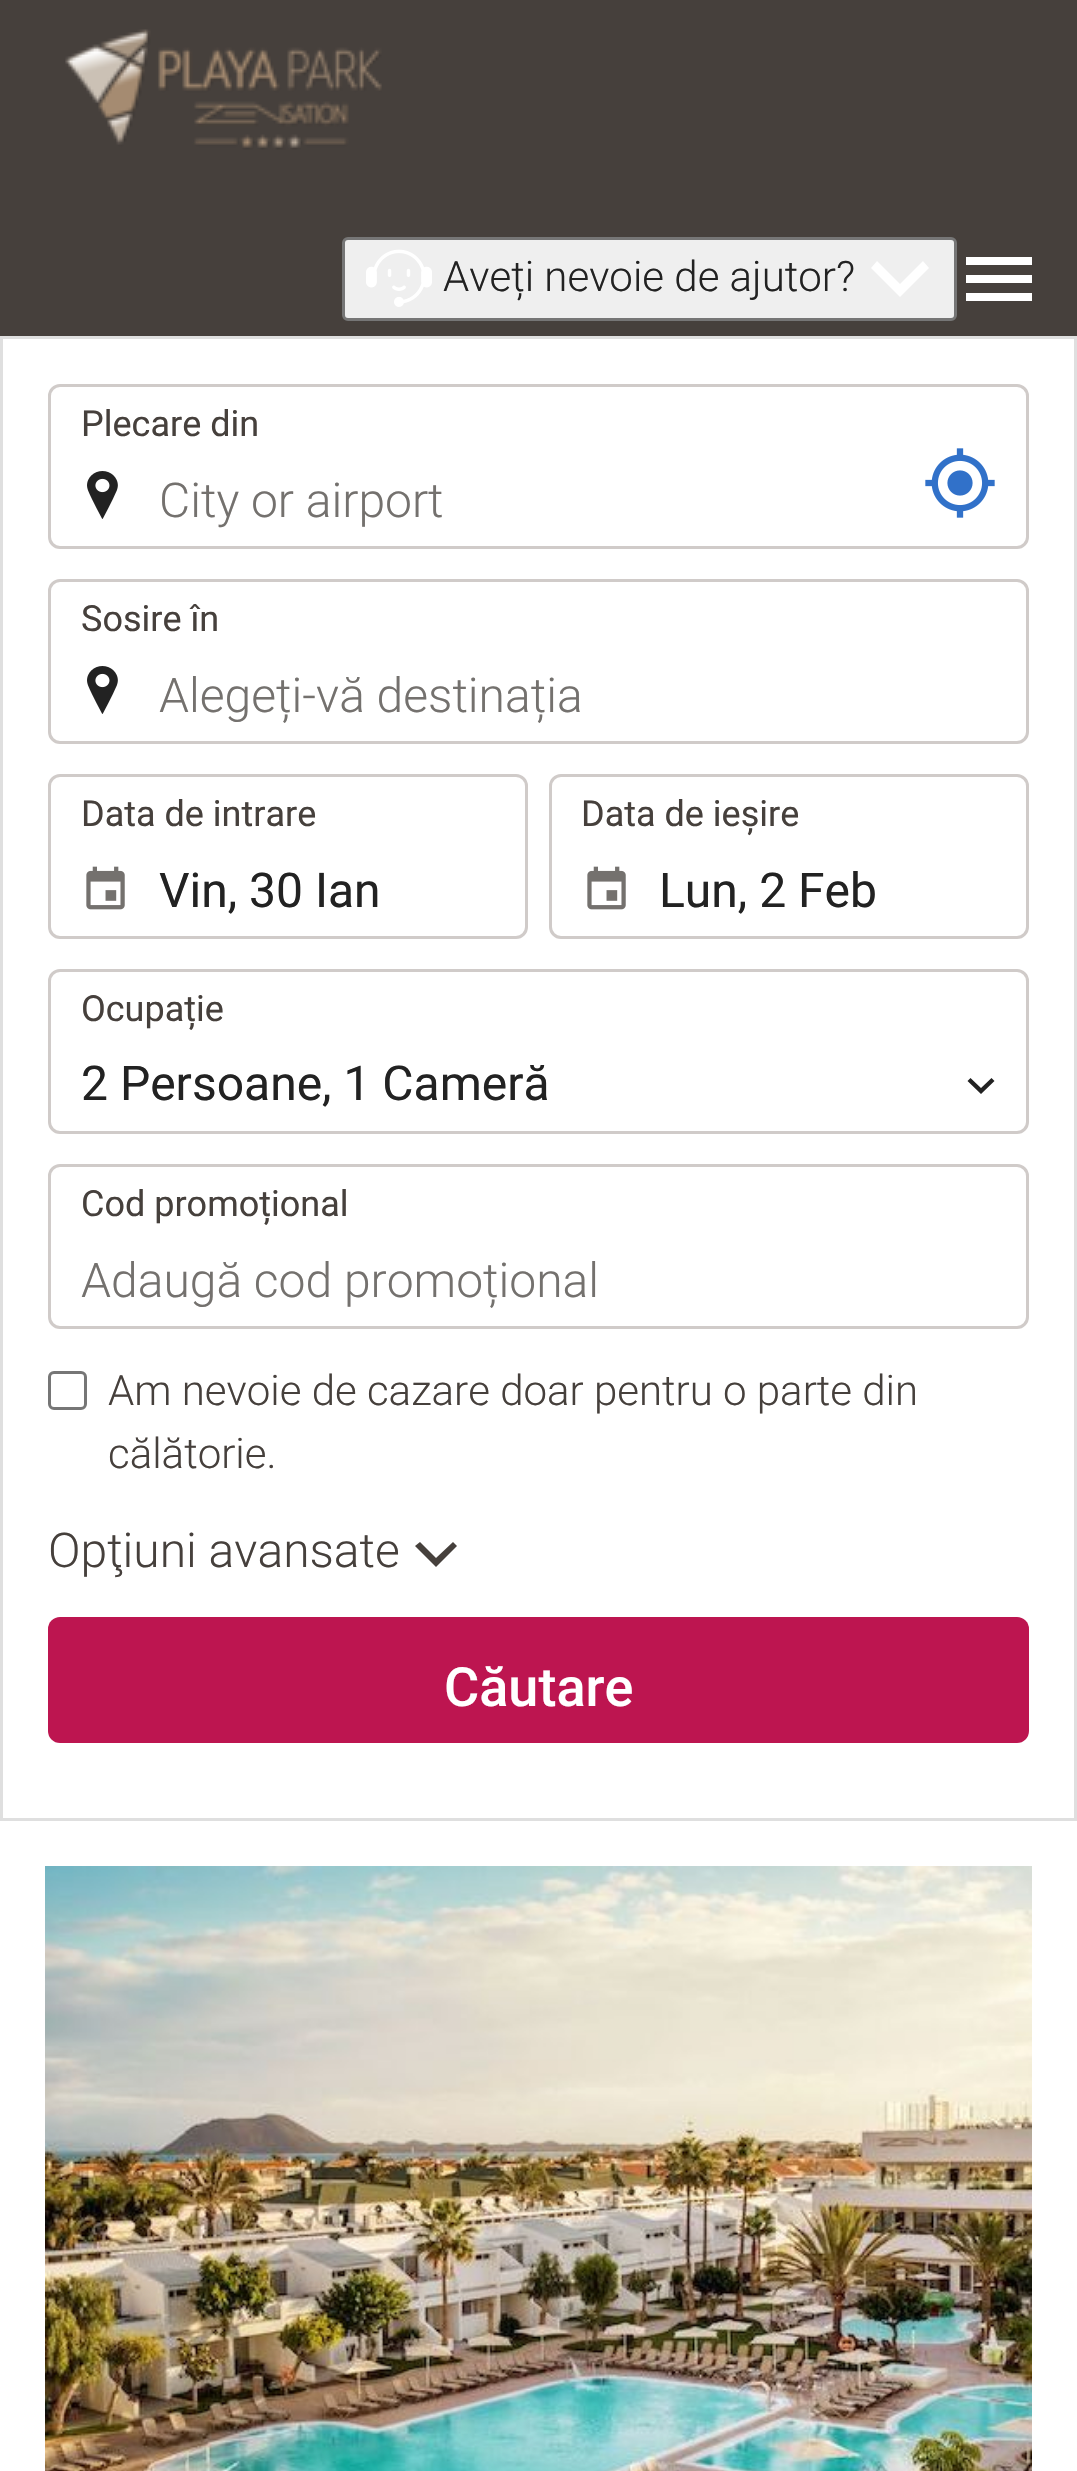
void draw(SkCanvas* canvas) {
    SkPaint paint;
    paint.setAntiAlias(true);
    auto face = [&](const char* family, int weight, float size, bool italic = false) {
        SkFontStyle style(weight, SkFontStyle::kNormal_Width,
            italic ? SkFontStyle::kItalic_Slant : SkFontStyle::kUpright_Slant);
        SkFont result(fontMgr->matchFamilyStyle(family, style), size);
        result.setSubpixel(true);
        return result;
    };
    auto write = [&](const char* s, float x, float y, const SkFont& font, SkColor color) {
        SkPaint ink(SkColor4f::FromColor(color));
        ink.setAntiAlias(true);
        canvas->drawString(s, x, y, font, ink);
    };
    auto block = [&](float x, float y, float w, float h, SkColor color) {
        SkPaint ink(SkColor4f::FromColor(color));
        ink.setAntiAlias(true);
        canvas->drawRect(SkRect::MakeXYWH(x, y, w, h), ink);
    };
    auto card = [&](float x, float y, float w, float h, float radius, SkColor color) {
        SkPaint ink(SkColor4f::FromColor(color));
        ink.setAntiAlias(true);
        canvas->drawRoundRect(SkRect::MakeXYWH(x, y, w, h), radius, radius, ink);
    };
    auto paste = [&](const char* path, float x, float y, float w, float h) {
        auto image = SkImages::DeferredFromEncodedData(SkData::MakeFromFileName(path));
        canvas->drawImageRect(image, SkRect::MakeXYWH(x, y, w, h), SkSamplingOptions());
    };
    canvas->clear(SK_ColorWHITE);
    block(0, 0, 1077, 336, SkColorSetRGB(70, 64, 60));
    paste("pic1.png", 65, 29, 317, 121);
    paint.setColor(SkColorSetRGB(239, 239, 239));
    canvas->drawRoundRect(SkRect::MakeXYWH(343.5f, 238.5f, 612, 81), 4.5f, 4.5f, paint);
    paint.setStyle(SkPaint::kStroke_Style);
    paint.setStrokeWidth(3);
    paint.setColor(SkColorSetRGB(118, 118, 118));
    canvas->drawRoundRect(SkRect::MakeXYWH(343.5f, 238.5f, 612, 81), 4.5f, 4.5f, paint);
    paste("pic2.png", 366, 249, 66, 58);
    auto kFont1 = face("Roboto", 300, 42);
    write("Aveți nevoie de ajutor?", 443, 291, kFont1, SkColorSetRGB(34, 34, 34));
    paint.setStyle(SkPaint::kFill_Style);
    paint.setColor(SK_ColorWHITE);
    canvas->drawPath(SkPathBuilder(SkPathFillType::kEvenOdd).moveTo(877, 261).lineTo(900, 284).lineTo(923, 261).lineTo(929, 268).lineTo(900, 297).lineTo(871, 268).close().detach(), paint);
    canvas->drawPath(SkPathBuilder().moveTo(966, 257).lineTo(1032, 257).lineTo(1032, 265).lineTo(966, 265).close().moveTo(966, 275).lineTo(1032, 275).lineTo(1032, 283).lineTo(966, 283).close().moveTo(966, 293).lineTo(1032, 293).lineTo(1032, 301).lineTo(966, 301).close().detach(), paint);
    paint.setStyle(SkPaint::kStroke_Style);
    paint.setColor(SkColorSetRGB(223, 223, 223));
    canvas->drawRect(SkRect::MakeXYWH(1.5f, 337.5f, 1074, 1482), paint);
    paste("pic3.png", 87, 471, 31, 48);
    paint.setColor(SkColorSetRGB(208, 203, 201));
    canvas->drawRoundRect(SkRect::MakeXYWH(49.5f, 385.5f, 978, 162), 10.5f, 10.5f, paint);
    auto kFont2 = face("Roboto", 400, 36);
    write("Plecare din", 81, 436, kFont2, SkColorSetRGB(70, 64, 60));
    auto kFont3 = face("Roboto", 300, 48);
    write("City or airport", 159, 517, kFont3, SkColorSetRGB(116, 113, 110));
    paste("pic4.png", 925, 448, 70, 70);
    paste("pic3.png", 87, 666, 31, 48);
    canvas->drawRoundRect(SkRect::MakeXYWH(49.5f, 580.5f, 978, 162), 10.5f, 10.5f, paint);
    write("Sosire în", 81, 631, kFont2, SkColorSetRGB(70, 64, 60));
    write("Alegeți-vă destinația", 159, 712, kFont3, SkColorSetRGB(116, 113, 110));
    paste("pic5.png", 86, 866, 39, 44);
    canvas->drawRoundRect(SkRect::MakeXYWH(49.5f, 775.5f, 477, 162), 10.5f, 10.5f, paint);
    write("Data de intrare", 81, 826, kFont2, SkColorSetRGB(70, 64, 60));
    auto kFont4 = face("Roboto", 400, 48);
    write("Vin, 30 Ian", 159, 907, kFont4, SkColorSetRGB(34, 34, 34));
    paste("pic5.png", 587, 866, 39, 44);
    canvas->drawRoundRect(SkRect::MakeXYWH(550.5f, 775.5f, 477, 162), 10.5f, 10.5f, paint);
    write("Data de ieșire", 581, 826, kFont2, SkColorSetRGB(70, 64, 60));
    write("Lun, 2 Feb", 659, 907, kFont4, SkColorSetRGB(34, 34, 34));
    canvas->drawRoundRect(SkRect::MakeXYWH(49.5f, 970.5f, 978, 162), 10.5f, 10.5f, paint);
    write("Ocupație", 81, 1021, kFont2, SkColorSetRGB(70, 64, 60));
    write("2 Persoane, 1 Cameră", 81, 1100, kFont4, SkColorSetRGB(34, 34, 34));
    paint.setStyle(SkPaint::kFill_Style);
    paint.setColor(SkColorSetRGB(34, 34, 34));
    canvas->drawPath(SkPathBuilder(SkPathFillType::kEvenOdd).moveTo(970.5f, 1078).lineTo(981, 1088).lineTo(991.5f, 1078).lineTo(994.5f, 1081).lineTo(981, 1094).lineTo(967.5f, 1081).close().detach(), paint);
    paint.setStyle(SkPaint::kStroke_Style);
    paint.setColor(SkColorSetRGB(208, 203, 201));
    canvas->drawRoundRect(SkRect::MakeXYWH(49.5f, 1165.5f, 978, 162), 10.5f, 10.5f, paint);
    write("Cod promoțional", 81, 1216, kFont2, SkColorSetRGB(70, 64, 60));
    write("Adaugă cod promoțional", 81, 1297, kFont3, SkColorSetRGB(116, 113, 110));
    paint.setColor(SkColorSetRGB(118, 118, 118));
    canvas->drawRoundRect(SkRect::MakeXYWH(49.5f, 1372.5f, 36, 36), 4.5f, 4.5f, paint);
    write("Am nevoie de cazare doar pentru o parte din", 108, 1405, kFont1, SkColorSetRGB(70, 64, 60));
    write("călătorie.", 108, 1468, kFont1, SkColorSetRGB(70, 64, 60));
    write("Opţiuni avansate", 48, 1567, kFont3, SkColorSetRGB(70, 64, 60));
    paint.setStyle(SkPaint::kFill_Style);
    paint.setColor(SkColorSetRGB(70, 64, 60));
    canvas->drawPath(SkPathBuilder(SkPathFillType::kEvenOdd).moveTo(420, 1542).lineTo(436, 1558).lineTo(453, 1542).lineTo(457, 1546).lineTo(436, 1567).lineTo(415, 1546).close().detach(), paint);
    card(48, 1617, 981, 126, 12, SkColorSetRGB(189, 21, 80));
    auto kFont5 = face("Roboto", 500, 54);
    write("Căutare", 444, 1706, kFont5, SK_ColorWHITE);
    paste("pic6.png", 45, 1866, 987, 605);
}
